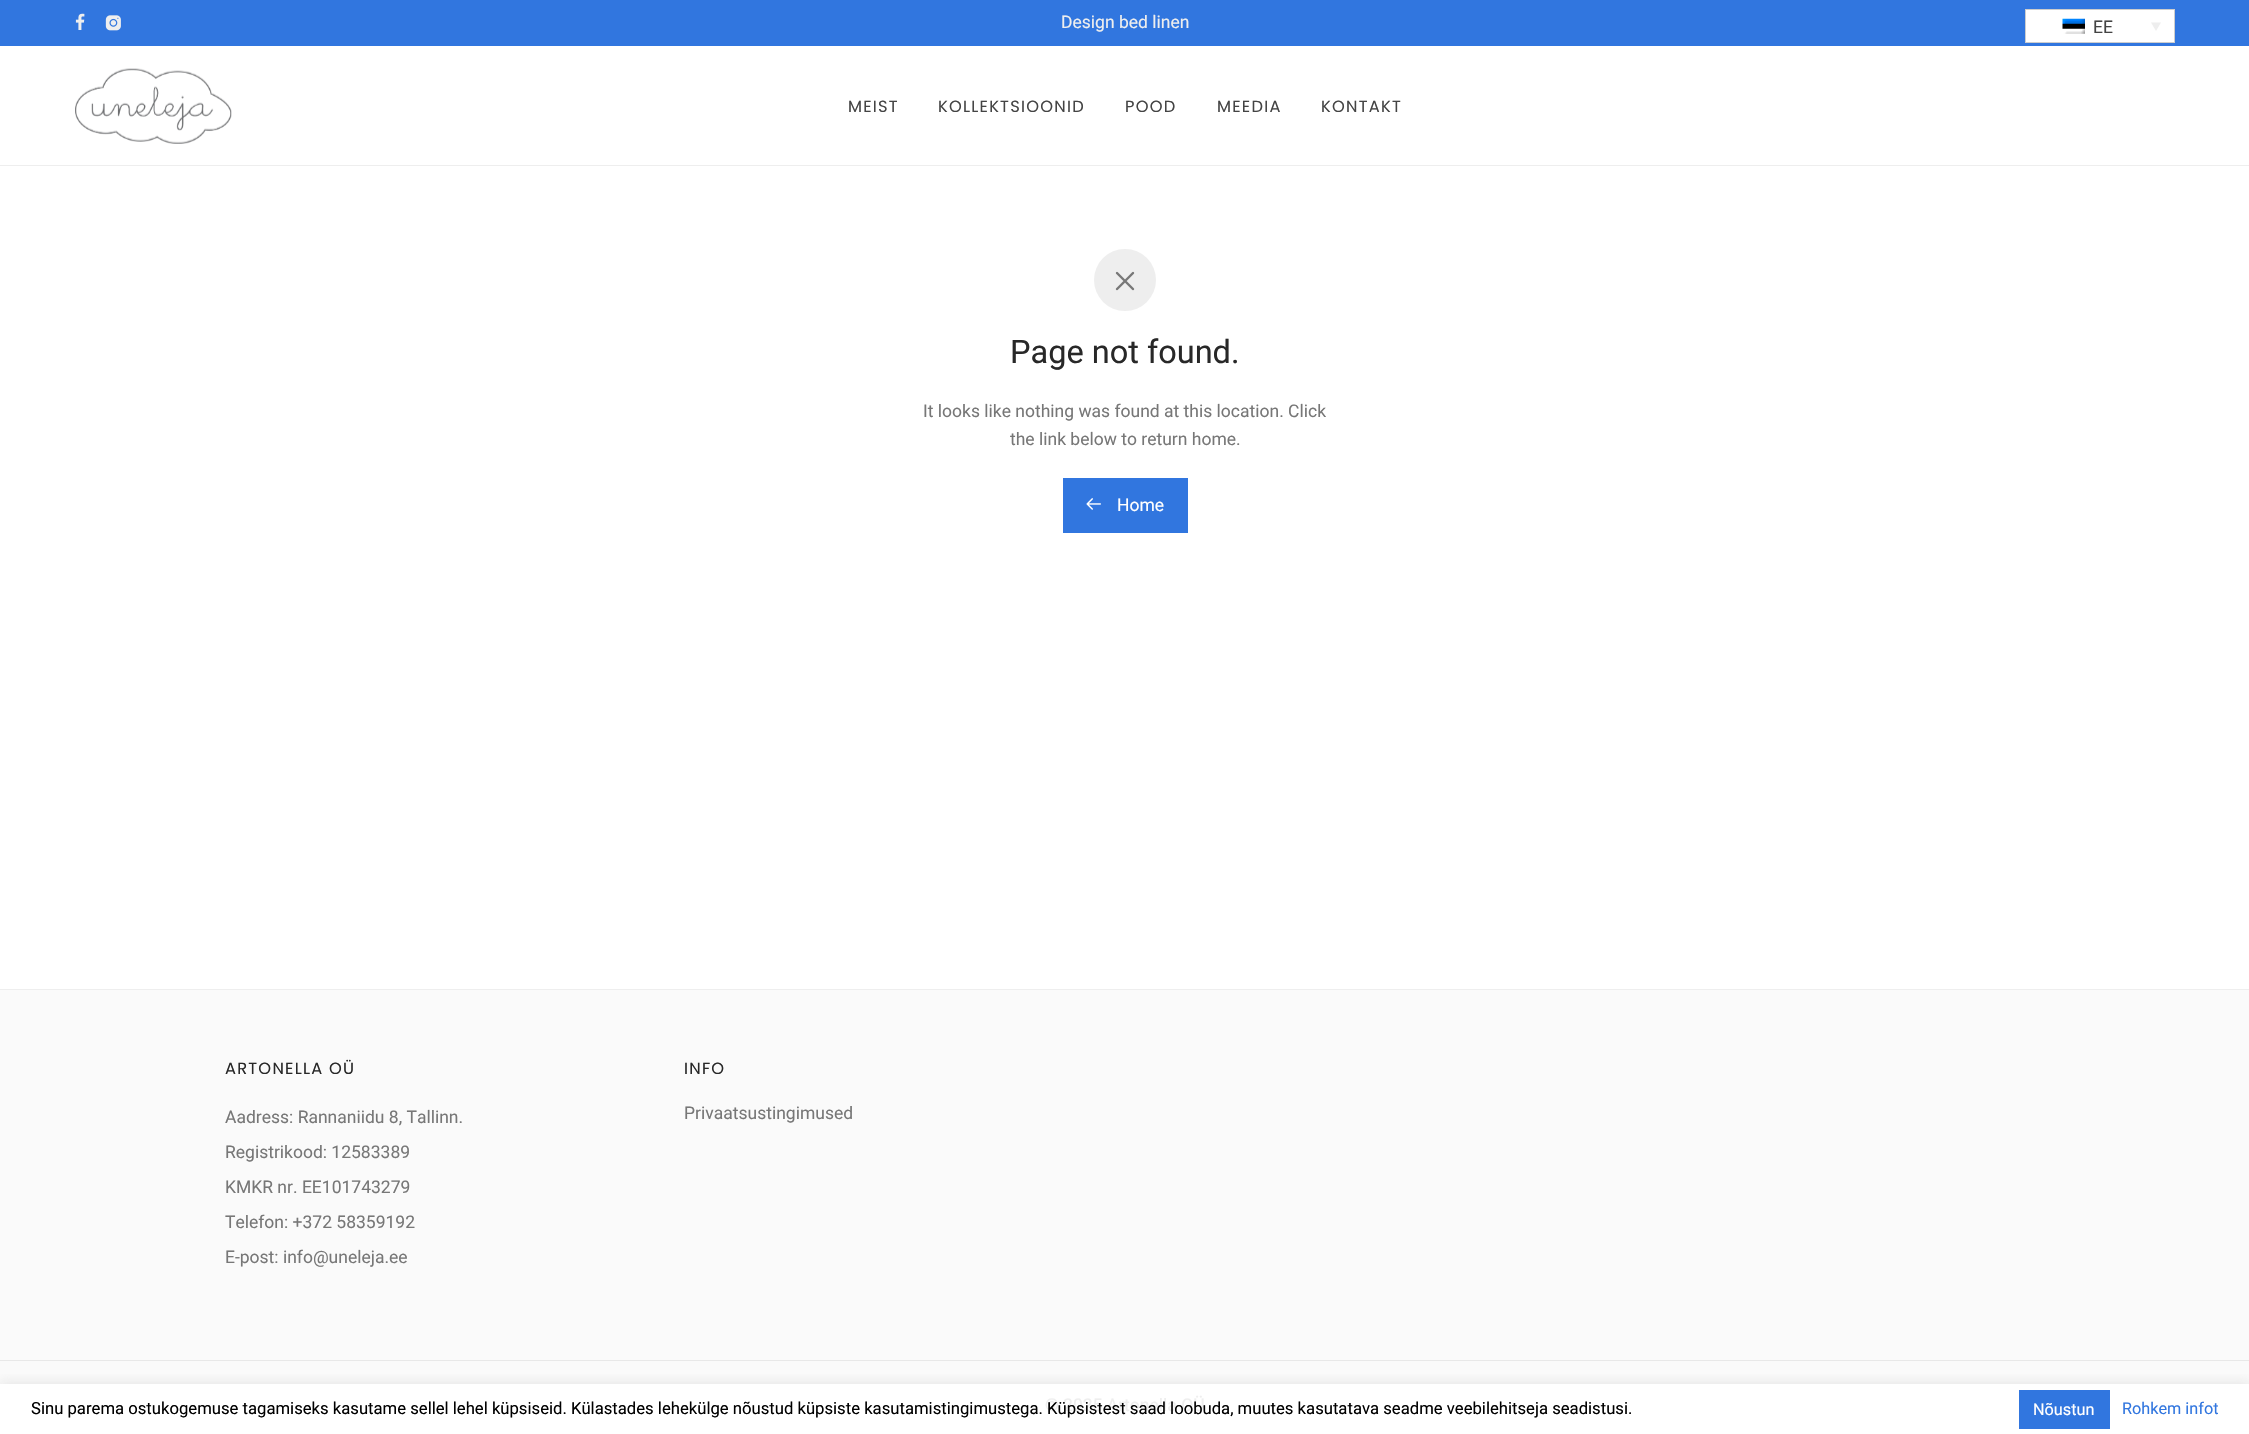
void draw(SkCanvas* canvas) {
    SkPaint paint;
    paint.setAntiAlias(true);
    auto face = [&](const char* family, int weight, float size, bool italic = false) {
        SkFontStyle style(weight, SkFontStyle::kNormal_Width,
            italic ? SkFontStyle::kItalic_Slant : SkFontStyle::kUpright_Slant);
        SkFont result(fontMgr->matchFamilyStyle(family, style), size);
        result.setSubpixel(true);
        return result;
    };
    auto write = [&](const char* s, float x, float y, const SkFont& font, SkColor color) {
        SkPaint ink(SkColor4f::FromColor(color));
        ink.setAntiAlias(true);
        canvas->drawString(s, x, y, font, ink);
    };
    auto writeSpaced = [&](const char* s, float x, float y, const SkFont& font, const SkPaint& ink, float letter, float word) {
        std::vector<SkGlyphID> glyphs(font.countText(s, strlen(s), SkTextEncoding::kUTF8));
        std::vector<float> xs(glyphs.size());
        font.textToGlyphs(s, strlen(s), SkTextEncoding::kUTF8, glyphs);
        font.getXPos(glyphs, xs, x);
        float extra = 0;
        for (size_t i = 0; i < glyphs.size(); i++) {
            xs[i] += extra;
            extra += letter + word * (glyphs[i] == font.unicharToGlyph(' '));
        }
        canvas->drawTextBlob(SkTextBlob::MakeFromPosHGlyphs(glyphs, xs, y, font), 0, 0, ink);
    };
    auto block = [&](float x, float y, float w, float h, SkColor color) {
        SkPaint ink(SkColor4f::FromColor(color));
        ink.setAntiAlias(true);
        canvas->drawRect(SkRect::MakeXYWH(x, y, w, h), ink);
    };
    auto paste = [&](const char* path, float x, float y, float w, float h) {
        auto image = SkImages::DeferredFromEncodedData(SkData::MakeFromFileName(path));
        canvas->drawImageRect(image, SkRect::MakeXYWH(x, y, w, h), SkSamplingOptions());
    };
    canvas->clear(SK_ColorWHITE);
    block(0, 0, 2249, 46, SkColorSetRGB(49, 118, 223));
    paste("pic1.png", 75, 13, 10, 17);
    paste("pic2.png", 105, 15, 16, 16);
    auto kFont1 = face("Roboto", 400, 17.5f);
    write("Design bed linen", 1061, 28, kFont1, SkColorSetRGB(238, 238, 238));
    paint.setColor(SK_ColorWHITE);
    canvas->drawRect(SkRect::MakeXYWH(2025.5f, 9.5f, 149, 33), paint);
    paint.setStyle(SkPaint::kStroke_Style);
    paint.setStrokeWidth(1);
    paint.setColor(SkColorSetRGB(205, 205, 205));
    canvas->drawRect(SkRect::MakeXYWH(2025.5f, 9.5f, 149, 33), paint);
    paste("pic3.png", 2062, 18, 23, 16);
    write("EE", 2093, 33, kFont1, SkColorSetRGB(68, 68, 68));
    paint.setStyle(SkPaint::kFill_Style);
    paint.setColor(SkColorSetRGB(238, 238, 238));
    canvas->drawPath(SkPathBuilder().moveTo(2151, 22.5f).lineTo(2161, 22.5f).lineTo(2156, 31).close().detach(), paint);
    block(0, 165, 2249, 1, SkColorSetRGB(238, 238, 238));
    paste("pic4.png", 75, 68, 157, 76);
    auto kFont2 = face("Poppins", 400, 16.25f);
    paint.setColor(SkColorSetRGB(68, 68, 68));
    writeSpaced("MEIST", 848, 112, kFont2, paint, 1.25f, 0);
    writeSpaced("KOLLEKTSIOONID", 938, 112, kFont2, paint, 1.25f, 0);
    writeSpaced("POOD", 1125, 112, kFont2, paint, 1.25f, 0);
    writeSpaced("MEEDIA", 1217, 112, kFont2, paint, 1.25f, 0);
    writeSpaced("KONTAKT", 1321, 112, kFont2, paint, 1.25f, 0);
    paint.setColor(SkColorSetRGB(238, 238, 238));
    canvas->drawCircle(1125, 280, 31, paint);
    paste("pic5.png", 1115, 271, 20, 20);
    auto kFont3 = face("Roboto", 400, 32.5f);
    write("Page not found.", 1010, 363, kFont3, SkColorSetRGB(40, 40, 40));
    write("It looks like nothing was found at this location. Click", 923, 417, kFont1, SkColorSetRGB(119, 119, 119));
    write("the link below to return home.", 1010, 445, kFont1, SkColorSetRGB(119, 119, 119));
    block(1063, 478, 125, 55, SkColorSetRGB(49, 118, 223));
    paste("pic6.png", 1086, 498, 15, 12);
    write("Home", 1117, 511, kFont1, SK_ColorWHITE);
    block(0, 990, 2249, 370, SkColorSetRGB(250, 250, 250));
    block(0, 989, 2249, 1, SkColorSetRGB(238, 238, 238));
    paint.setColor(SkColorSetRGB(40, 40, 40));
    writeSpaced("ARTONELLA OÜ", 225, 1074, kFont2, paint, 1.25f, 0);
    write("Aadress: Rannaniidu 8, Tallinn.", 225, 1123, kFont1, SkColorSetRGB(119, 119, 119));
    write("Registrikood: 12583389", 225, 1158, kFont1, SkColorSetRGB(119, 119, 119));
    write("KMKR nr. EE101743279", 225, 1193, kFont1, SkColorSetRGB(119, 119, 119));
    write("Telefon: +372 58359192", 225, 1228, kFont1, SkColorSetRGB(119, 119, 119));
    write("E-post: info@uneleja.ee", 225, 1263, kFont1, SkColorSetRGB(119, 119, 119));
    writeSpaced("INFO", 684, 1074, kFont2, paint, 1.25f, 0);
    write("Privaatsustingimused", 684, 1119, kFont1, SkColorSetRGB(119, 119, 119));
    block(0, 1360, 2249, 1, SkColorSetRGB(232, 232, 232));
    block(0, 1361, 2249, 23, SkColorSetRGB(250, 250, 250));
    write("© 2025 Artonella OÜ", 1045, 1411, kFont1, SkColorSetRGB(238, 238, 238));
    canvas->save();
    canvas->clipRect(SkRect::MakeXYWH(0, 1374, 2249, 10));
    paint.setColor(SkColorSetARGB(77, 172, 171, 171));
    paint.setMaskFilter(SkMaskFilter::MakeBlur(kNormal_SkBlurStyle, 6));
    canvas->drawRect(SkRect::MakeXYWH(0, 1383, 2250, 51), paint);
    paint.setMaskFilter(nullptr);
    canvas->restore();
    auto kFont4 = face("Roboto", 400, 16.67f);
    write("Sinu parema ostukogemuse tagamiseks kasutame sellel lehel küpsiseid. Külastades lehekülge nõustud küpsiste kasutamistingimustega. Küpsistest saad loobuda, muutes kasutatava seadme veebilehitseja seadistusi.", 31, 1414, kFont4, SK_ColorBLACK);
    block(2019, 1390, 91, 39, SkColorSetRGB(49, 118, 223));
    auto kFont5 = face("Roboto", 400, 16.25f);
    write("Nõustun", 2033, 1415, kFont5, SK_ColorWHITE);
    write("Rohkem infot", 2122, 1414, kFont5, SkColorSetRGB(49, 118, 223));
}
